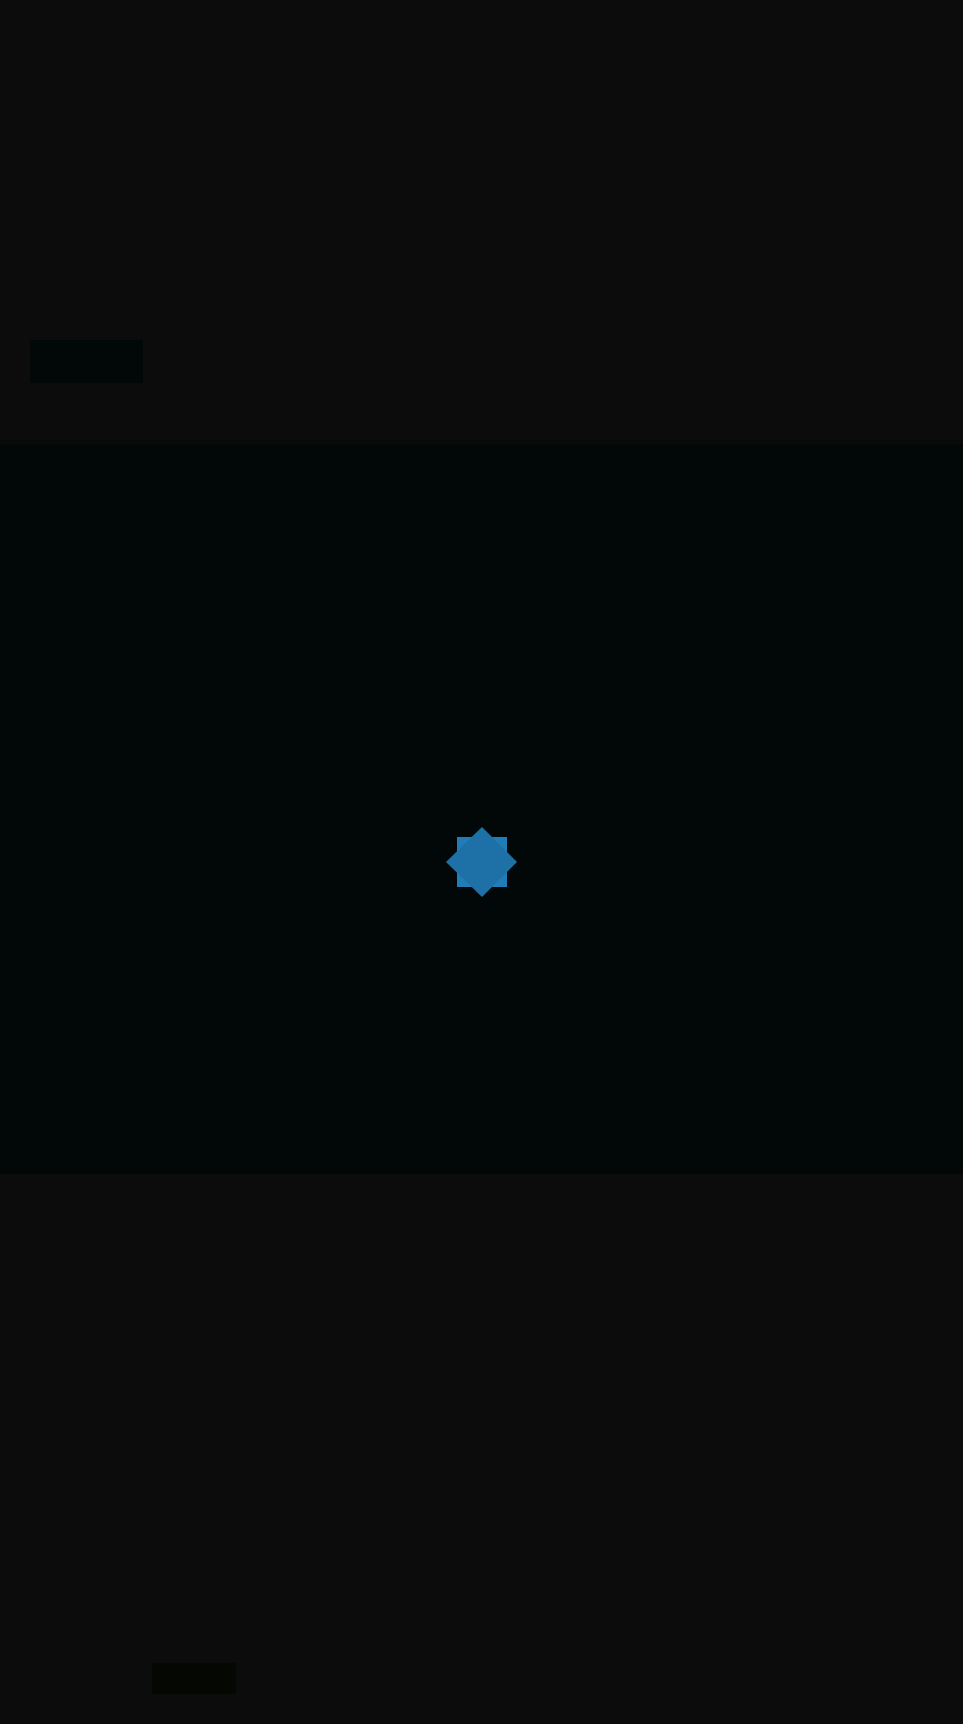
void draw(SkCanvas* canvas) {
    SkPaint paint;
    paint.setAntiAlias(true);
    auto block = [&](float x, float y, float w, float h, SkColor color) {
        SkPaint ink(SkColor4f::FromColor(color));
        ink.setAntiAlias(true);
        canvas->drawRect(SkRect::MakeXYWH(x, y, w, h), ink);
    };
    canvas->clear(SkColorSetRGB(12, 12, 12));
    block(30, 340, 113, 43, SkColorSetRGB(2, 8, 8));
    block(0, 440, 963, 5, SkColorSetRGB(7, 9, 9));
    block(0, 442, 963, 1, SkColorSetRGB(13, 13, 13));
    block(0, 445, 963, 729, SkColorSetRGB(2, 8, 8));
    block(457, 837, 50, 50, SkColorSetRGB(33, 125, 184));
    paint.setColor(SkColorSetRGB(30, 113, 167));
    canvas->drawPath(SkPathBuilder().moveTo(482, 827).lineTo(517, 862).lineTo(482, 897).lineTo(446, 862).close().detach(), paint);
    block(152, 1663, 84, 31, SkColorSetRGB(5, 8, 2));
}
